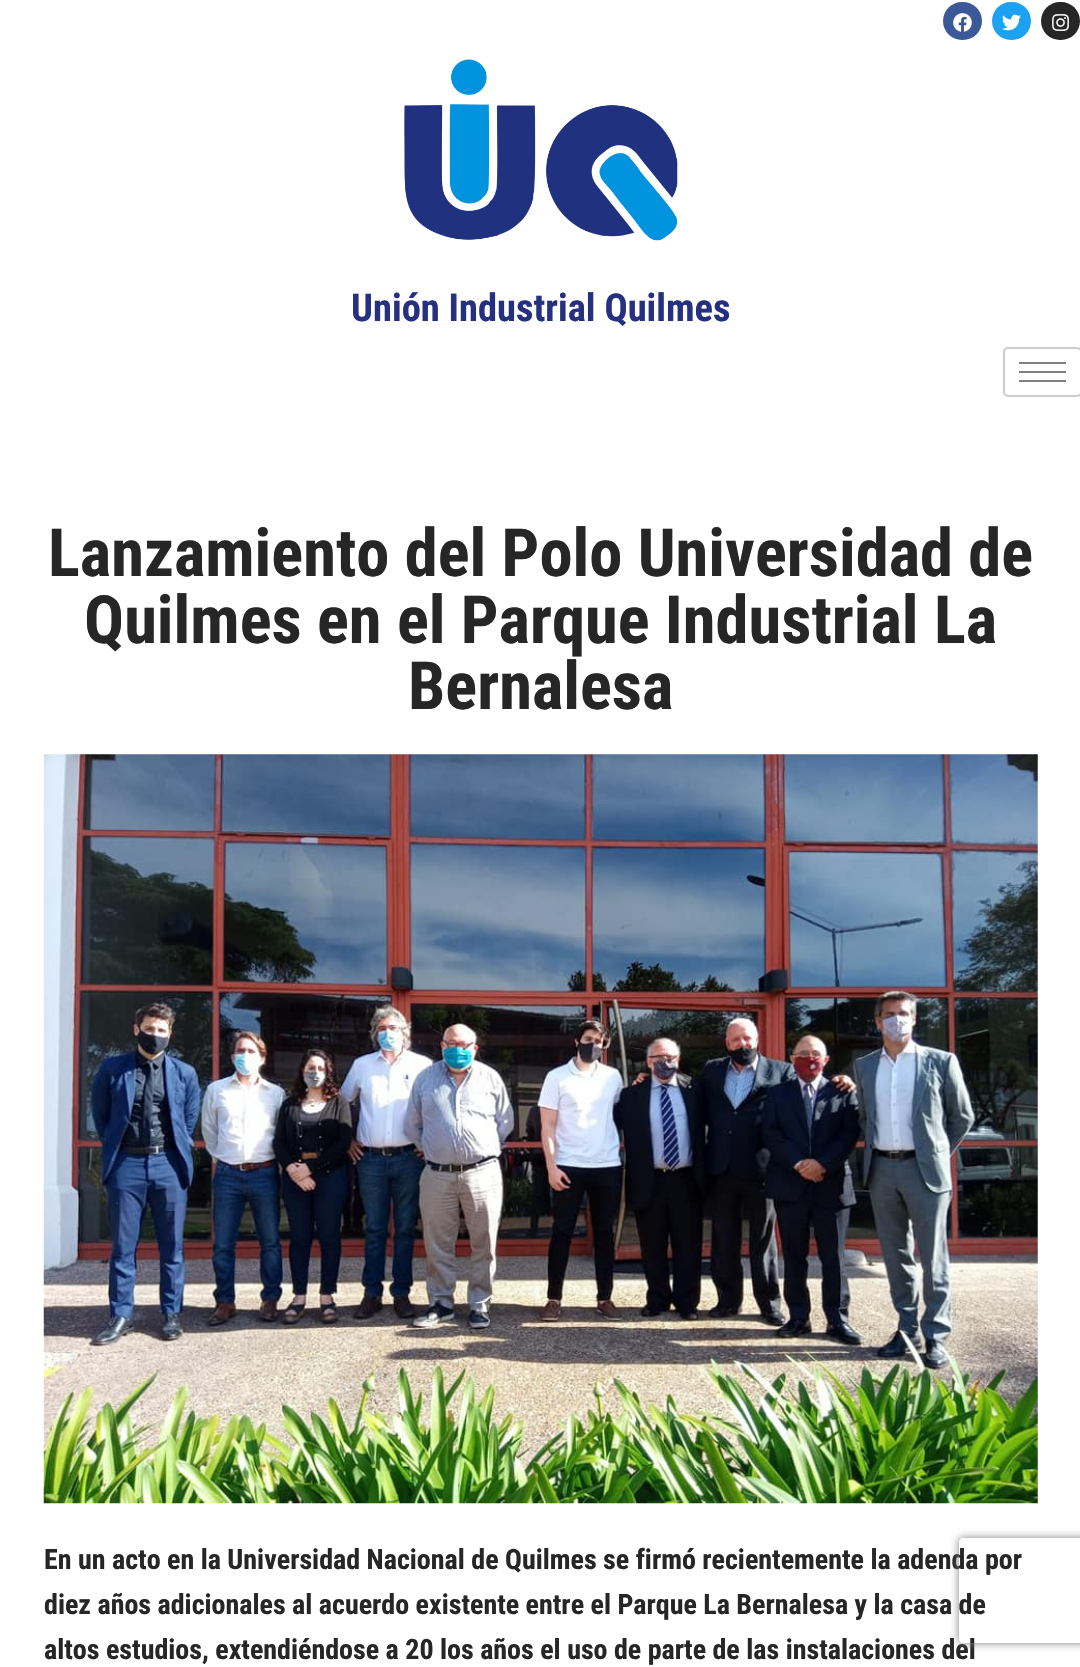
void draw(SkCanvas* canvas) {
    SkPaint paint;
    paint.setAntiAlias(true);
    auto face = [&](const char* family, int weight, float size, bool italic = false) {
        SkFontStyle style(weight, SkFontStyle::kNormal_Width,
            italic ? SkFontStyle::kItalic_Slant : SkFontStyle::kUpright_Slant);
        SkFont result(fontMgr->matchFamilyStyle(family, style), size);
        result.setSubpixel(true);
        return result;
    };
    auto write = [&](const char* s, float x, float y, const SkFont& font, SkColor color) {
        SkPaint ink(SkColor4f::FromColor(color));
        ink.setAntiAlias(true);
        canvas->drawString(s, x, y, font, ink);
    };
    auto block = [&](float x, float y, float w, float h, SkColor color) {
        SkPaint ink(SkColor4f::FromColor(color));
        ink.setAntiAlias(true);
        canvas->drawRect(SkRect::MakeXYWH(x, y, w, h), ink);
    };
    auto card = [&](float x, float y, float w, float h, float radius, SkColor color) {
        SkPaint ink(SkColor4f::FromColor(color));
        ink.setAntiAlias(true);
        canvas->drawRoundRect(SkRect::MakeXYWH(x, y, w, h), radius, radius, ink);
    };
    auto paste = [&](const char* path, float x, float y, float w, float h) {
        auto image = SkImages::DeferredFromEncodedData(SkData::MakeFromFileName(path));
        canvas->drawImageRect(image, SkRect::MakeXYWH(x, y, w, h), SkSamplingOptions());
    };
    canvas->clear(SK_ColorWHITE);
    card(943, 2, 39, 38, 19, SkColorSetRGB(59, 89, 152));
    paste("pic1.png", 953, 13, 19, 19);
    card(992, 2, 39, 38, 19, SkColorSetRGB(29, 161, 242));
    paste("pic2.png", 1002, 14, 19, 17);
    card(1041, 2, 39, 38, 19, SkColorSetRGB(38, 38, 38));
    paste("pic3.png", 1052, 14, 17, 17);
    paste("pic4.png", 404, 59, 274, 182);
    auto kFont1 = face("Roboto Condensed", 700, 38.5f);
    write("Unión Industrial Quilmes", 351, 321, kFont1, SkColorSetRGB(37, 49, 128));
    paint.setStyle(SkPaint::kStroke_Style);
    paint.setStrokeWidth(2);
    paint.setColor(SkColorSetRGB(204, 204, 204));
    canvas->drawRoundRect(SkRect::MakeXYWH(1004, 348, 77, 48), 4, 4, paint);
    block(1019, 362, 47, 2, SkColorSetRGB(128, 128, 128));
    block(1019, 371, 47, 2, SkColorSetRGB(128, 128, 128));
    block(1019, 380, 47, 2, SkColorSetRGB(128, 128, 128));
    auto kFont2 = face("Roboto Condensed", 700, 66.5f);
    write("Lanzamiento del Polo Universidad de", 48, 576, kFont2, SkColorSetRGB(39, 38, 38));
    write("Quilmes en el Parque Industrial La", 84, 643, kFont2, SkColorSetRGB(39, 38, 38));
    write("Bernalesa", 408, 709, kFont2, SkColorSetRGB(39, 38, 38));
    paste("pic5.png", 43, 754, 995, 750);
    auto kFont3 = face("Roboto Condensed", 700, 28);
    write("En un acto en la Universidad Nacional de Quilmes se firmó recientemente la adenda por", 44, 1569, kFont3, SkColorSetRGB(39, 38, 38));
    write("diez años adicionales al acuerdo existente entre el Parque La Bernalesa y la casa de", 44, 1614, kFont3, SkColorSetRGB(39, 38, 38));
    write("altos estudios, extendiéndose a 20 los años el uso de parte de las instalaciones del", 44, 1659, kFont3, SkColorSetRGB(39, 38, 38));
    canvas->save();
    canvas->clipPath(SkPathBuilder(SkPathFillType::kEvenOdd).moveTo(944, 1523).lineTo(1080, 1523).lineTo(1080, 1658).lineTo(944, 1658).close().moveTo(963, 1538).lineTo(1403, 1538).cubicTo(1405, 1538, 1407, 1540, 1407, 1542).lineTo(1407, 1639).cubicTo(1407, 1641, 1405, 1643, 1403, 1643).lineTo(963, 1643).cubicTo(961, 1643, 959, 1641, 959, 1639).lineTo(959, 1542).cubicTo(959, 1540, 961, 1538, 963, 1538).close().detach(), true);
    paint.setStyle(SkPaint::kFill_Style);
    paint.setColor(SkColorSetRGB(128, 128, 128));
    paint.setMaskFilter(SkMaskFilter::MakeBlur(kNormal_SkBlurStyle, 4.5f));
    canvas->drawRoundRect(SkRect::MakeXYWH(959, 1538, 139, 105), 4, 4, paint);
    paint.setMaskFilter(nullptr);
    canvas->restore();
}
